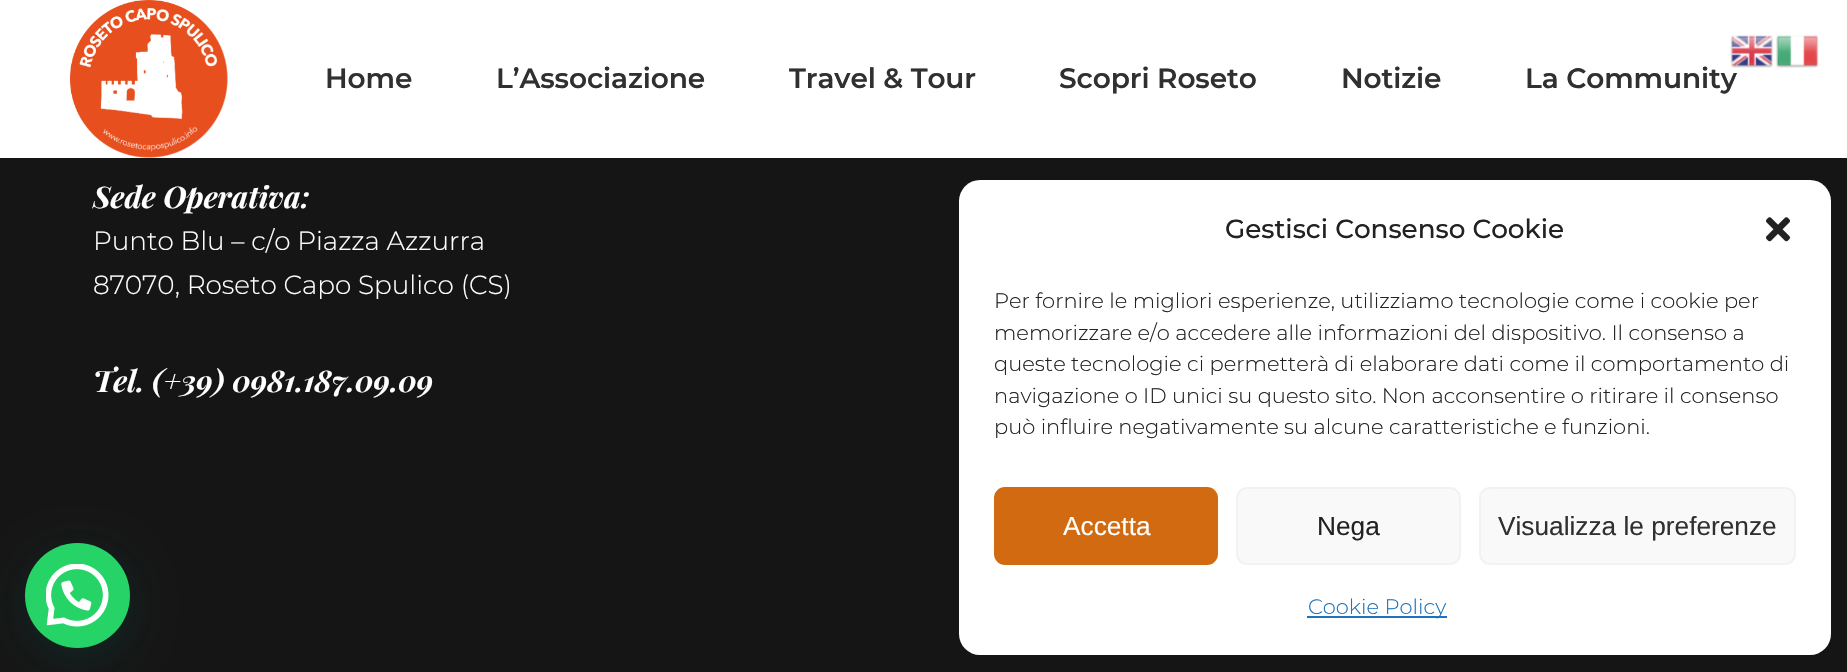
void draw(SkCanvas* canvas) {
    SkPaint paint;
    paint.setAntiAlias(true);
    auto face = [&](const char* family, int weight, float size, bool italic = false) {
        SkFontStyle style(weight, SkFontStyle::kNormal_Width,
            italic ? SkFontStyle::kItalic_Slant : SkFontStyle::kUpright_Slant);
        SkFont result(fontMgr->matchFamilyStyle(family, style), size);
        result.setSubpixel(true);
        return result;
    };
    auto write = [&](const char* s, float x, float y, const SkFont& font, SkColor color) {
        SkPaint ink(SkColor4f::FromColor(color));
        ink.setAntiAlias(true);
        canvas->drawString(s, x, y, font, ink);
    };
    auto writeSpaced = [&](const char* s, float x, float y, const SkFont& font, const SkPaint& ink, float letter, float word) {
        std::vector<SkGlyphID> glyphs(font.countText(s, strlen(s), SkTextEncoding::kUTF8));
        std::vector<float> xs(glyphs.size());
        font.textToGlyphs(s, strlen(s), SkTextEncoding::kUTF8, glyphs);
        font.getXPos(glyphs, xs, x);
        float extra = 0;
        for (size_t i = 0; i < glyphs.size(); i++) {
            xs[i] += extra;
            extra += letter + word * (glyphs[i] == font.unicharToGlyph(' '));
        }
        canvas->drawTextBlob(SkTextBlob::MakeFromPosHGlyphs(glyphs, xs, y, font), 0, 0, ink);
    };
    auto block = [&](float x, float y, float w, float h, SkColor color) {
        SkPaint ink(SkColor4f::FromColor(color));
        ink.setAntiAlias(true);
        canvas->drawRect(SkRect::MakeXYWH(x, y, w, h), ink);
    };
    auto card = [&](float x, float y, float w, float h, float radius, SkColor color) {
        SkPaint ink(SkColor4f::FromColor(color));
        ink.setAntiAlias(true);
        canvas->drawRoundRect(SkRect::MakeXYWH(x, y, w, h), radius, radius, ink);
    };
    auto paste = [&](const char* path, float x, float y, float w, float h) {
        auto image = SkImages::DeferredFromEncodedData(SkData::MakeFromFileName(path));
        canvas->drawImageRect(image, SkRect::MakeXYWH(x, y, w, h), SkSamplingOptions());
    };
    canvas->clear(SkColorSetRGB(21, 21, 21));
    block(0, 0, 1847, 158, SK_ColorWHITE);
    auto kFont1 = face("Montserrat", 600, 28);
    paint.setColor(SkColorSetRGB(48, 48, 48));
    writeSpaced("La Community", 1525, 88, kFont1, paint, -0.1f, 0);
    paste("pic1.png", 1730, 35, 43, 33);
    paste("pic2.png", 1776, 35, 43, 33);
    paste("pic3.png", 70, 0, 158, 158);
    writeSpaced("Home", 325, 88, kFont1, paint, -0.1f, 0);
    writeSpaced("L’Associazione", 496, 88, kFont1, paint, -0.1f, 0);
    writeSpaced("Travel & Tour", 789, 88, kFont1, paint, -0.1f, 0);
    writeSpaced("Scopri Roseto", 1059, 88, kFont1, paint, -0.1f, 0);
    writeSpaced("Notizie", 1341, 88, kFont1, paint, -0.1f, 0);
    auto kFont2 = face("Playfair Display", 700, 29.75f, true);
    write("Sede Operativa:", 93, 208, kFont2, SK_ColorWHITE);
    auto kFont3 = face("Montserrat", 300, 26.25f);
    write("Punto Blu – c/o Piazza Azzurra", 93, 250, kFont3, SK_ColorWHITE);
    write("87070, Roseto Capo Spulico (CS)", 93, 294, kFont3, SK_ColorWHITE);
    write("Tel. (+39) 0981.187.09.09", 93, 392, kFont2, SK_ColorWHITE);
    paint.setColor(SkColorSetARGB(61, 7, 94, 84));
    paint.setMaskFilter(SkMaskFilter::MakeBlur(kNormal_SkBlurStyle, 21));
    canvas->drawRoundRect(SkRect::MakeXYWH(26, 553, 105, 105), 52.5f, 52.5f, paint);
    paint.setMaskFilter(nullptr);
    paint.setColor(SkColorSetRGB(37, 211, 102));
    canvas->drawCircle(77.5f, 595.5f, 52.5f, paint);
    paste("pic4.png", 46, 564, 63, 63);
    card(959, 180, 872, 475, 21, SK_ColorWHITE);
    auto kFont4 = face("Montserrat", 500, 26.25f);
    write("Gestisci Consenso Cookie", 1225, 238, kFont4, SkColorSetRGB(34, 34, 34));
    paste("pic5.png", 1766, 217, 24, 25);
    auto kFont5 = face("Montserrat", 300, 21);
    write("Per fornire le migliori esperienze, utilizziamo tecnologie come i cookie per", 994, 308, kFont5, SkColorSetRGB(34, 34, 34));
    write("memorizzare e/o accedere alle informazioni del dispositivo. Il consenso a", 994, 340, kFont5, SkColorSetRGB(34, 34, 34));
    write("queste tecnologie ci permetterà di elaborare dati come il comportamento di", 994, 371, kFont5, SkColorSetRGB(34, 34, 34));
    write("navigazione o ID unici su questo sito. Non acconsentire o ritirare il consenso", 994, 403, kFont5, SkColorSetRGB(34, 34, 34));
    write("può influire negativamente su alcune caratteristiche e funzioni.", 994, 434, kFont5, SkColorSetRGB(34, 34, 34));
    paint.setColor(SkColorSetRGB(209, 106, 16));
    canvas->drawRoundRect(SkRect::MakeXYWH(995, 488, 222, 76), 10, 10, paint);
    paint.setStyle(SkPaint::kStroke_Style);
    paint.setStrokeWidth(2);
    canvas->drawRoundRect(SkRect::MakeXYWH(995, 488, 222, 76), 10, 10, paint);
    auto kFont6 = face("Liberation Sans", 400, 26.25f);
    write("Accetta", 1063, 535, kFont6, SK_ColorWHITE);
    paint.setStyle(SkPaint::kFill_Style);
    paint.setColor(SkColorSetRGB(249, 249, 249));
    canvas->drawRoundRect(SkRect::MakeXYWH(1237, 488, 223, 76), 10, 10, paint);
    paint.setStyle(SkPaint::kStroke_Style);
    paint.setColor(SkColorSetRGB(242, 242, 242));
    canvas->drawRoundRect(SkRect::MakeXYWH(1237, 488, 223, 76), 10, 10, paint);
    write("Nega", 1317, 535, kFont6, SkColorSetRGB(34, 34, 34));
    paint.setStyle(SkPaint::kFill_Style);
    paint.setColor(SkColorSetRGB(249, 249, 249));
    canvas->drawRoundRect(SkRect::MakeXYWH(1480, 488, 315, 76), 10, 10, paint);
    paint.setStyle(SkPaint::kStroke_Style);
    paint.setColor(SkColorSetRGB(242, 242, 242));
    canvas->drawRoundRect(SkRect::MakeXYWH(1480, 488, 315, 76), 10, 10, paint);
    write("Visualizza le preferenze", 1498, 535, kFont6, SkColorSetRGB(48, 48, 48));
    block(1307, 616, 140, 2, SkColorSetRGB(30, 115, 190));
    write("Cookie Policy", 1308, 614, kFont5, SkColorSetRGB(30, 115, 190));
}
